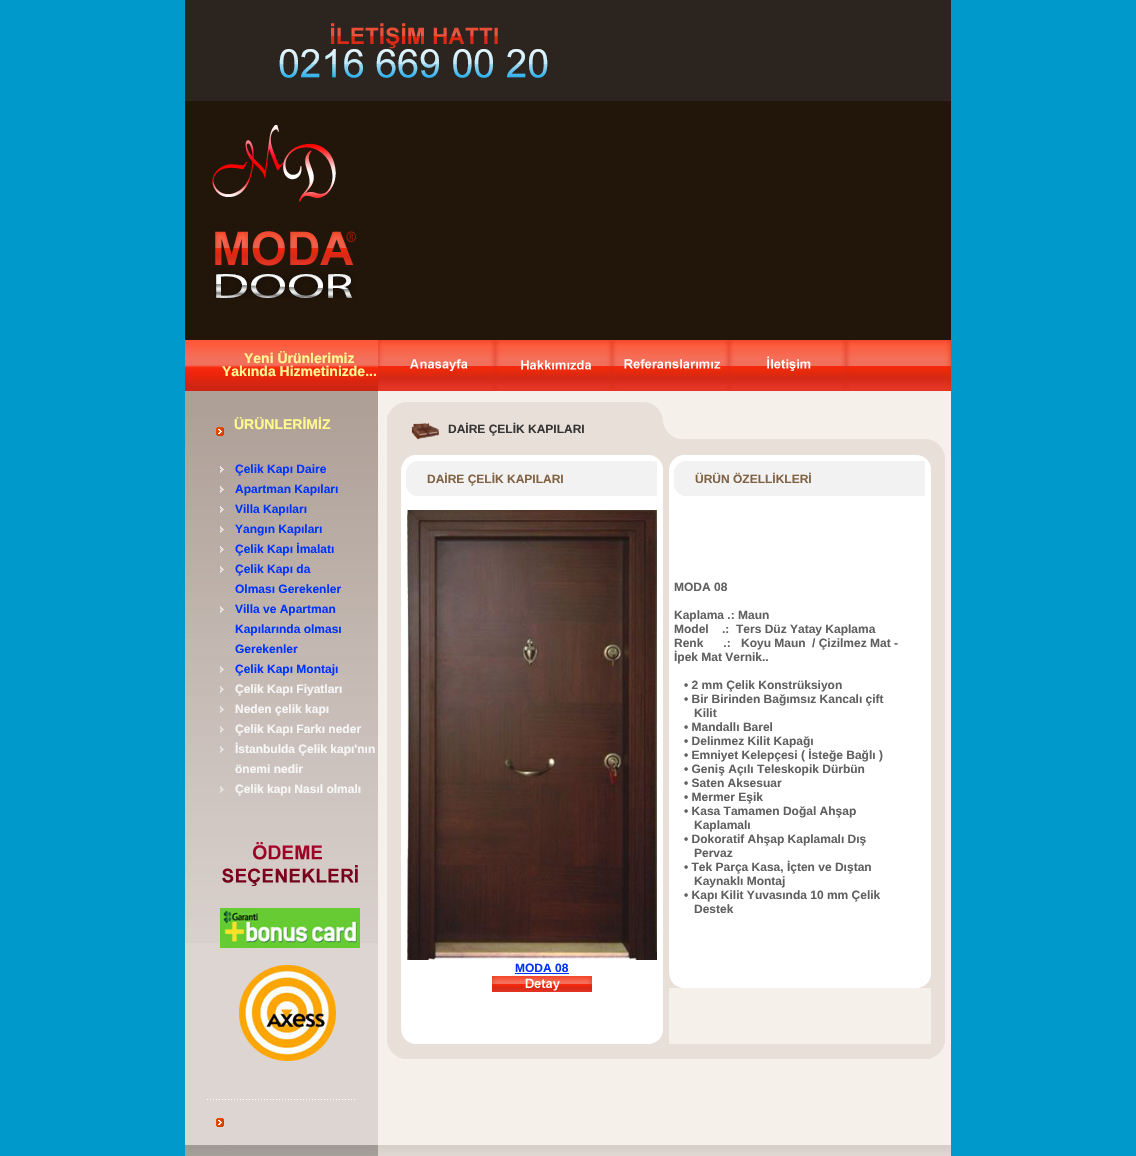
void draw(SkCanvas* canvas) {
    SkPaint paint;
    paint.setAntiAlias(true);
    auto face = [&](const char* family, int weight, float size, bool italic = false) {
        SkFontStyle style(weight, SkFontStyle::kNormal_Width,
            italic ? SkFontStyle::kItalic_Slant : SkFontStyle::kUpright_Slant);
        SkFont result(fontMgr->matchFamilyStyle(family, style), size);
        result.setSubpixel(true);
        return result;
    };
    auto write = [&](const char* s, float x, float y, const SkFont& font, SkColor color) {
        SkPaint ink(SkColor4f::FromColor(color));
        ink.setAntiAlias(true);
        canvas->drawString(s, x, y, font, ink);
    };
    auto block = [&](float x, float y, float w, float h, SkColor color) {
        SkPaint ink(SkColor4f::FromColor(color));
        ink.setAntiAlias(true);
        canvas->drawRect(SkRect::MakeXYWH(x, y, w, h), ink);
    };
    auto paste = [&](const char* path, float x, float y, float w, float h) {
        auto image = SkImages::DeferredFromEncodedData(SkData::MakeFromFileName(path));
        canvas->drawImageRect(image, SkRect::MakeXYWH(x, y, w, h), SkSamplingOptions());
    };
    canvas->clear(SkColorSetRGB(0, 153, 204));
    block(378, 391, 573, 754, SkColorSetRGB(245, 240, 233));
    block(185, 0, 766, 101, SkColorSetRGB(43, 36, 31));
    paste("pic1.png", 279, 23, 269, 55);
    block(185, 101, 766, 239, SkColorSetRGB(34, 21, 9));
    paste("pic2.png", 212, 125, 124, 77);
    paste("pic3.png", 214, 231, 142, 67);
    paste("pic4.png", 185, 340, 193, 51);
    auto kFont1 = face("Liberation Sans", 700, 14);
    write("Yeni Ürünlerimiz", 244, 363, kFont1, SkColorSetRGB(255, 249, 144));
    write("Yakında Hizmetinizde...", 222, 376, kFont1, SkColorSetRGB(255, 249, 144));
    paste("pic5.png", 378, 340, 117, 51);
    paste("pic6.png", 495, 340, 117, 51);
    paste("pic7.png", 612, 340, 117, 51);
    paste("pic8.png", 729, 340, 117, 51);
    paste("pic9.png", 846, 340, 105, 51);
    block(185, 391, 193, 24, SkColorSetRGB(175, 160, 151));
    paste("pic10.png", 388, 402, 274, 13);
    block(185, 943, 193, 202, SkColorSetRGB(220, 213, 210));
    paste("pic11.png", 185, 415, 193, 528);
    paste("pic12.png", 216, 427, 8, 9);
    write("ÜRÜNLERİMİZ", 234, 429, kFont1, SkColorSetRGB(255, 249, 144));
    paste("pic13.png", 220, 466, 4, 7);
    auto kFont2 = face("Liberation Sans", 700, 12);
    write("Çelik Kapı Daire", 235, 473, kFont2, SkColorSetRGB(0, 51, 255));
    paste("pic14.png", 220, 486, 4, 7);
    write("Apartman Kapıları", 235, 493, kFont2, SkColorSetRGB(0, 51, 255));
    paste("pic15.png", 220, 506, 4, 7);
    write("Villa Kapıları", 235, 513, kFont2, SkColorSetRGB(0, 51, 255));
    paste("pic16.png", 220, 526, 4, 7);
    write("Yangın Kapıları", 235, 533, kFont2, SkColorSetRGB(0, 51, 255));
    paste("pic17.png", 220, 546, 4, 7);
    write("Çelik Kapı İmalatı", 235, 553, kFont2, SkColorSetRGB(0, 51, 255));
    paste("pic18.png", 220, 566, 4, 7);
    write("Çelik Kapı da", 235, 573, kFont2, SkColorSetRGB(0, 51, 255));
    write("Olması Gerekenler", 235, 593, kFont2, SkColorSetRGB(0, 51, 255));
    paste("pic19.png", 220, 606, 4, 7);
    write("Villa ve Apartman", 235, 613, kFont2, SkColorSetRGB(0, 51, 255));
    write("Kapılarında olması", 235, 633, kFont2, SkColorSetRGB(0, 51, 255));
    write("Gerekenler", 235, 653, kFont2, SkColorSetRGB(0, 51, 255));
    paste("pic20.png", 220, 666, 4, 7);
    write("Çelik Kapı Montajı", 235, 673, kFont2, SkColorSetRGB(0, 51, 255));
    paste("pic21.png", 220, 686, 4, 7);
    write("Çelik Kapı Fiyatları", 235, 693, kFont2, SkColorSetRGB(247, 247, 247));
    paste("pic22.png", 220, 706, 4, 7);
    write("Neden çelik kapı", 235, 713, kFont2, SkColorSetRGB(247, 247, 247));
    paste("pic23.png", 220, 726, 4, 7);
    write("Çelik Kapı Farkı neder", 235, 733, kFont2, SkColorSetRGB(247, 247, 247));
    paste("pic24.png", 220, 746, 4, 7);
    write("İstanbulda Çelik kapı'nın", 235, 753, kFont2, SkColorSetRGB(247, 247, 247));
    write("önemi nedir", 235, 773, kFont2, SkColorSetRGB(247, 247, 247));
    paste("pic25.png", 220, 786, 4, 7);
    write("Çelik kapı Nasıl olmalı", 235, 793, kFont2, SkColorSetRGB(247, 247, 247));
    paste("pic26.png", 222, 842, 136, 44);
    paste("pic27.png", 220, 908, 140, 40);
    paste("pic28.png", 239, 965, 97, 96);
    paste("pic29.png", 207, 1099, 148, 1);
    paste("pic30.png", 216, 1118, 8, 9);
    block(387, 415, 275, 40, SkColorSetRGB(231, 223, 216));
    paste("pic31.png", 411, 423, 28, 17);
    write("DAİRE ÇELİK KAPILARI", 448, 433, kFont2, SkColorSetRGB(53, 53, 53));
    paste("pic32.png", 662, 417, 283, 38);
    block(387, 455, 14, 589, SkColorSetRGB(231, 223, 216));
    block(401, 455, 262, 589, SK_ColorWHITE);
    paste("pic33.png", 401, 455, 13, 14);
    paste("pic34.png", 401, 1027, 13, 17);
    paste("pic35.png", 649, 455, 14, 12);
    paste("pic36.png", 650, 1032, 13, 12);
    block(406, 461, 251, 35, SkColorSetRGB(242, 242, 242));
    paste("pic37.png", 406, 461, 9, 9);
    paste("pic38.png", 406, 487, 9, 9);
    write("DAİRE ÇELİK KAPILARI", 427, 483, kFont2, SkColorSetRGB(128, 98, 68));
    paste("pic39.png", 407, 510, 250, 450);
    write("MODA 08", 515, 972, kFont2, SkColorSetRGB(0, 51, 255));
    block(515, 973, 54, 1, SkColorSetRGB(0, 51, 255));
    paste("pic40.png", 492, 976, 100, 16);
    block(663, 455, 6, 589, SkColorSetRGB(231, 223, 216));
    block(669, 455, 262, 533, SK_ColorWHITE);
    paste("pic33.png", 669, 455, 13, 14);
    paste("pic34.png", 669, 971, 13, 17);
    paste("pic35.png", 917, 455, 14, 12);
    paste("pic36.png", 918, 976, 13, 12);
    block(674, 461, 251, 35, SkColorSetRGB(242, 242, 242));
    paste("pic37.png", 674, 461, 9, 9);
    paste("pic38.png", 674, 487, 9, 9);
    write("ÜRÜN ÖZELLİKLERİ", 695, 483, kFont2, SkColorSetRGB(128, 98, 68));
    write("MODA 08", 674, 591, kFont2, SkColorSetRGB(96, 96, 96));
    write("Kaplama .: Maun", 674, 619, kFont2, SkColorSetRGB(96, 96, 96));
    write("Model    .:", 674, 633, kFont2, SkColorSetRGB(96, 96, 96));
    write("Ters Düz Yatay Kaplama", 736, 633, kFont2, SkColorSetRGB(96, 96, 96));
    write("Renk      .:", 674, 647, kFont2, SkColorSetRGB(96, 96, 96));
    write("Koyu Maun", 741, 647, kFont2, SkColorSetRGB(96, 96, 96));
    write("/ Çizilmez Mat -", 812, 647, kFont2, SkColorSetRGB(96, 96, 96));
    write("İpek Mat Vernik..", 674, 661, kFont2, SkColorSetRGB(96, 96, 96));
    write("• 2 mm Çelik Konstrüksiyon", 684, 689, kFont2, SkColorSetRGB(96, 96, 96));
    write("• Bir Birinden Bağımsız Kancalı çift", 684, 703, kFont2, SkColorSetRGB(96, 96, 96));
    write("Kilit", 694, 717, kFont2, SkColorSetRGB(96, 96, 96));
    write("• Mandallı Barel", 684, 731, kFont2, SkColorSetRGB(96, 96, 96));
    write("• Delinmez Kilit Kapağı", 684, 745, kFont2, SkColorSetRGB(96, 96, 96));
    write("• Emniyet Kelepçesi ( İsteğe Bağlı )", 684, 759, kFont2, SkColorSetRGB(96, 96, 96));
    write("• Geniş Açılı Teleskopik Dürbün", 684, 773, kFont2, SkColorSetRGB(96, 96, 96));
    write("• Saten Aksesuar", 684, 787, kFont2, SkColorSetRGB(96, 96, 96));
    write("• Mermer Eşik", 684, 801, kFont2, SkColorSetRGB(96, 96, 96));
    write("• Kasa Tamamen Doğal Ahşap", 684, 815, kFont2, SkColorSetRGB(96, 96, 96));
    write("Kaplamalı", 694, 829, kFont2, SkColorSetRGB(96, 96, 96));
    write("• Dokoratif Ahşap Kaplamalı Dış", 684, 843, kFont2, SkColorSetRGB(96, 96, 96));
    write("Pervaz", 694, 857, kFont2, SkColorSetRGB(96, 96, 96));
    write("• Tek Parça Kasa, İçten ve Dıştan", 684, 871, kFont2, SkColorSetRGB(96, 96, 96));
    write("Kaynaklı Montaj", 694, 885, kFont2, SkColorSetRGB(96, 96, 96));
    write("• Kapı Kilit Yuvasında 10 mm Çelik", 684, 899, kFont2, SkColorSetRGB(96, 96, 96));
    write("Destek", 694, 913, kFont2, SkColorSetRGB(96, 96, 96));
    block(931, 455, 14, 589, SkColorSetRGB(231, 223, 216));
    paste("pic41.png", 388, 1044, 13, 14);
    block(401, 1044, 530, 15, SkColorSetRGB(231, 223, 216));
    paste("pic42.png", 931, 1044, 13, 14);
    paste("pic43.png", 185, 1145, 193, 11);
    paste("pic44.png", 378, 1145, 573, 11);
}
